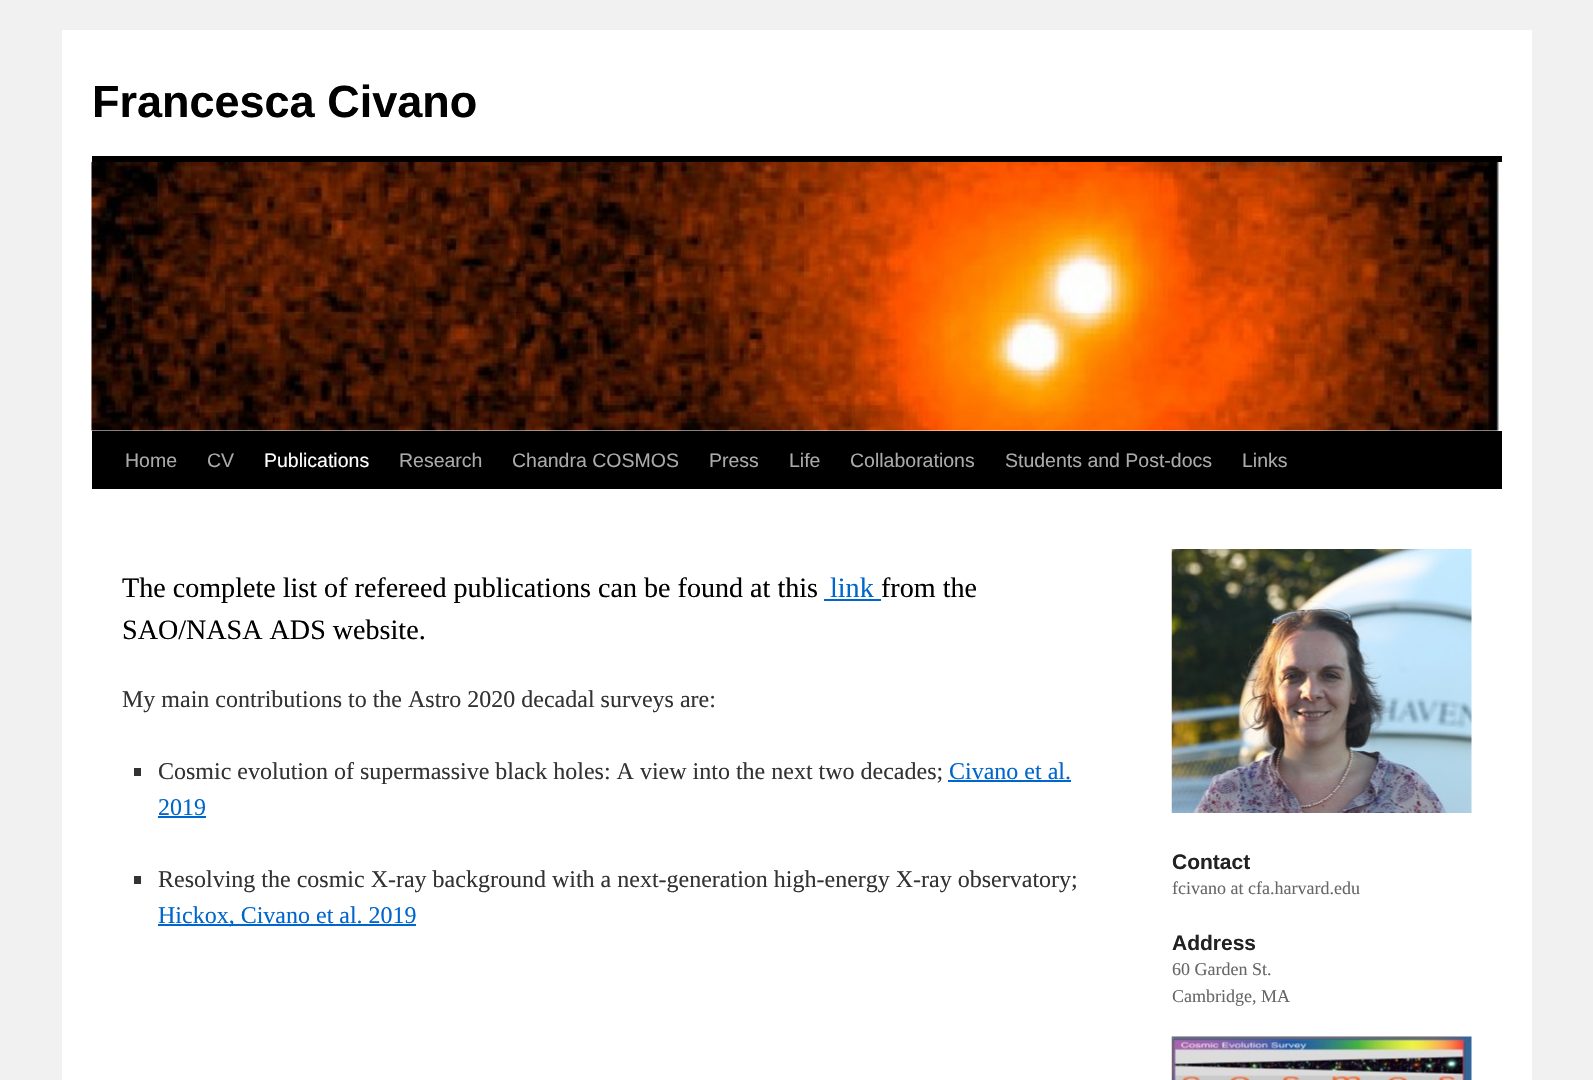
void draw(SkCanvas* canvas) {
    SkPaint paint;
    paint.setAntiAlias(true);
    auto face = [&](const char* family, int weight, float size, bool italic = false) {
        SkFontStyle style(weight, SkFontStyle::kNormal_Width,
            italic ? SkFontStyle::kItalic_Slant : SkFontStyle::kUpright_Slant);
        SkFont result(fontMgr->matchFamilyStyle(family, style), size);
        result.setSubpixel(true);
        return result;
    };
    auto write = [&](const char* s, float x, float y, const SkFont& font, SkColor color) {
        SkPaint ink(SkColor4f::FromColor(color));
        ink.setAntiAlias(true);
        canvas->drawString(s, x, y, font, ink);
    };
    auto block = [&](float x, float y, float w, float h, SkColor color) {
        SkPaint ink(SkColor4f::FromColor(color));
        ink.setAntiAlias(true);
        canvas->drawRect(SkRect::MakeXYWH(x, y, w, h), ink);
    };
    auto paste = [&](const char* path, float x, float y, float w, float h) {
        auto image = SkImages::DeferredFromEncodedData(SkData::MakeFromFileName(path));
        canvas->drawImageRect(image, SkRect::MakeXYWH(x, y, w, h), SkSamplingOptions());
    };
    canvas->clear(SkColorSetRGB(241, 241, 241));
    block(62, 30, 1470, 1050, SK_ColorWHITE);
    auto kFont1 = face("Liberation Sans", 700, 45);
    write("Francesca Civano", 92, 117, kFont1, SK_ColorBLACK);
    block(92, 156, 1410, 6, SK_ColorBLACK);
    block(92, 431, 1410, 58, SK_ColorBLACK);
    paste("pic1.png", 91, 162, 1410, 269);
    auto kFont2 = face("Liberation Sans", 400, 19.5f);
    write("Home", 125, 467, kFont2, SkColorSetRGB(170, 170, 170));
    write("CV", 207, 467, kFont2, SkColorSetRGB(170, 170, 170));
    write("Publications", 264, 467, kFont2, SK_ColorWHITE);
    write("Research", 399, 467, kFont2, SkColorSetRGB(170, 170, 170));
    write("Chandra COSMOS", 512, 467, kFont2, SkColorSetRGB(170, 170, 170));
    write("Press", 709, 467, kFont2, SkColorSetRGB(170, 170, 170));
    write("Life", 789, 467, kFont2, SkColorSetRGB(170, 170, 170));
    write("Collaborations", 850, 467, kFont2, SkColorSetRGB(170, 170, 170));
    write("Students and Post-docs", 1005, 467, kFont2, SkColorSetRGB(170, 170, 170));
    write("Links", 1242, 467, kFont2, SkColorSetRGB(170, 170, 170));
    auto kFont3 = face("Liberation Serif", 400, 28.1f);
    write("The complete list of refereed publications can be found at this", 122, 597, kFont3, SK_ColorBLACK);
    write("link", 830, 597, kFont3, SkColorSetRGB(0, 102, 204));
    block(824, 599, 57, 2, SkColorSetRGB(0, 102, 204));
    write("from the", 881, 597, kFont3, SK_ColorBLACK);
    write("SAO/NASA ADS website.", 122, 639, kFont3, SK_ColorBLACK);
    auto kFont4 = face("Liberation Serif", 400, 24);
    write("My main contributions to the Astro 2020 decadal surveys are:", 122, 707, kFont4, SkColorSetRGB(51, 51, 51));
    block(134, 768, 7, 8, SkColorSetRGB(51, 51, 51));
    write("Cosmic evolution of supermassive black holes: A view into the next two decades;", 158, 779, kFont4, SkColorSetRGB(51, 51, 51));
    write("Civano et al.", 949, 779, kFont4, SkColorSetRGB(0, 102, 204));
    block(948, 780, 123, 2, SkColorSetRGB(0, 102, 204));
    write("2019", 158, 815, kFont4, SkColorSetRGB(0, 102, 204));
    block(158, 816, 48, 2, SkColorSetRGB(0, 102, 204));
    block(134, 876, 7, 8, SkColorSetRGB(51, 51, 51));
    write("Resolving the cosmic X-ray background with a next-generation high-energy X-ray observatory;", 158, 887, kFont4, SkColorSetRGB(51, 51, 51));
    block(158, 924, 258, 2, SkColorSetRGB(0, 102, 204));
    write("Hickox, Civano et al. 2019", 158, 923, kFont4, SkColorSetRGB(0, 102, 204));
    paste("pic2.png", 1171, 549, 301, 264);
    auto kFont5 = face("Liberation Sans", 700, 21);
    write("Contact", 1172, 869, kFont5, SkColorSetRGB(34, 34, 34));
    auto kFont6 = face("Liberation Serif", 400, 18);
    write("fcivano at cfa.harvard.edu", 1172, 894, kFont6, SkColorSetRGB(102, 102, 102));
    write("Address", 1172, 950, kFont5, SkColorSetRGB(34, 34, 34));
    write("60 Garden St.", 1172, 975, kFont6, SkColorSetRGB(102, 102, 102));
    write("Cambridge, MA", 1172, 1002, kFont6, SkColorSetRGB(102, 102, 102));
    paste("pic3.png", 1171, 1036, 301, 44);
}
